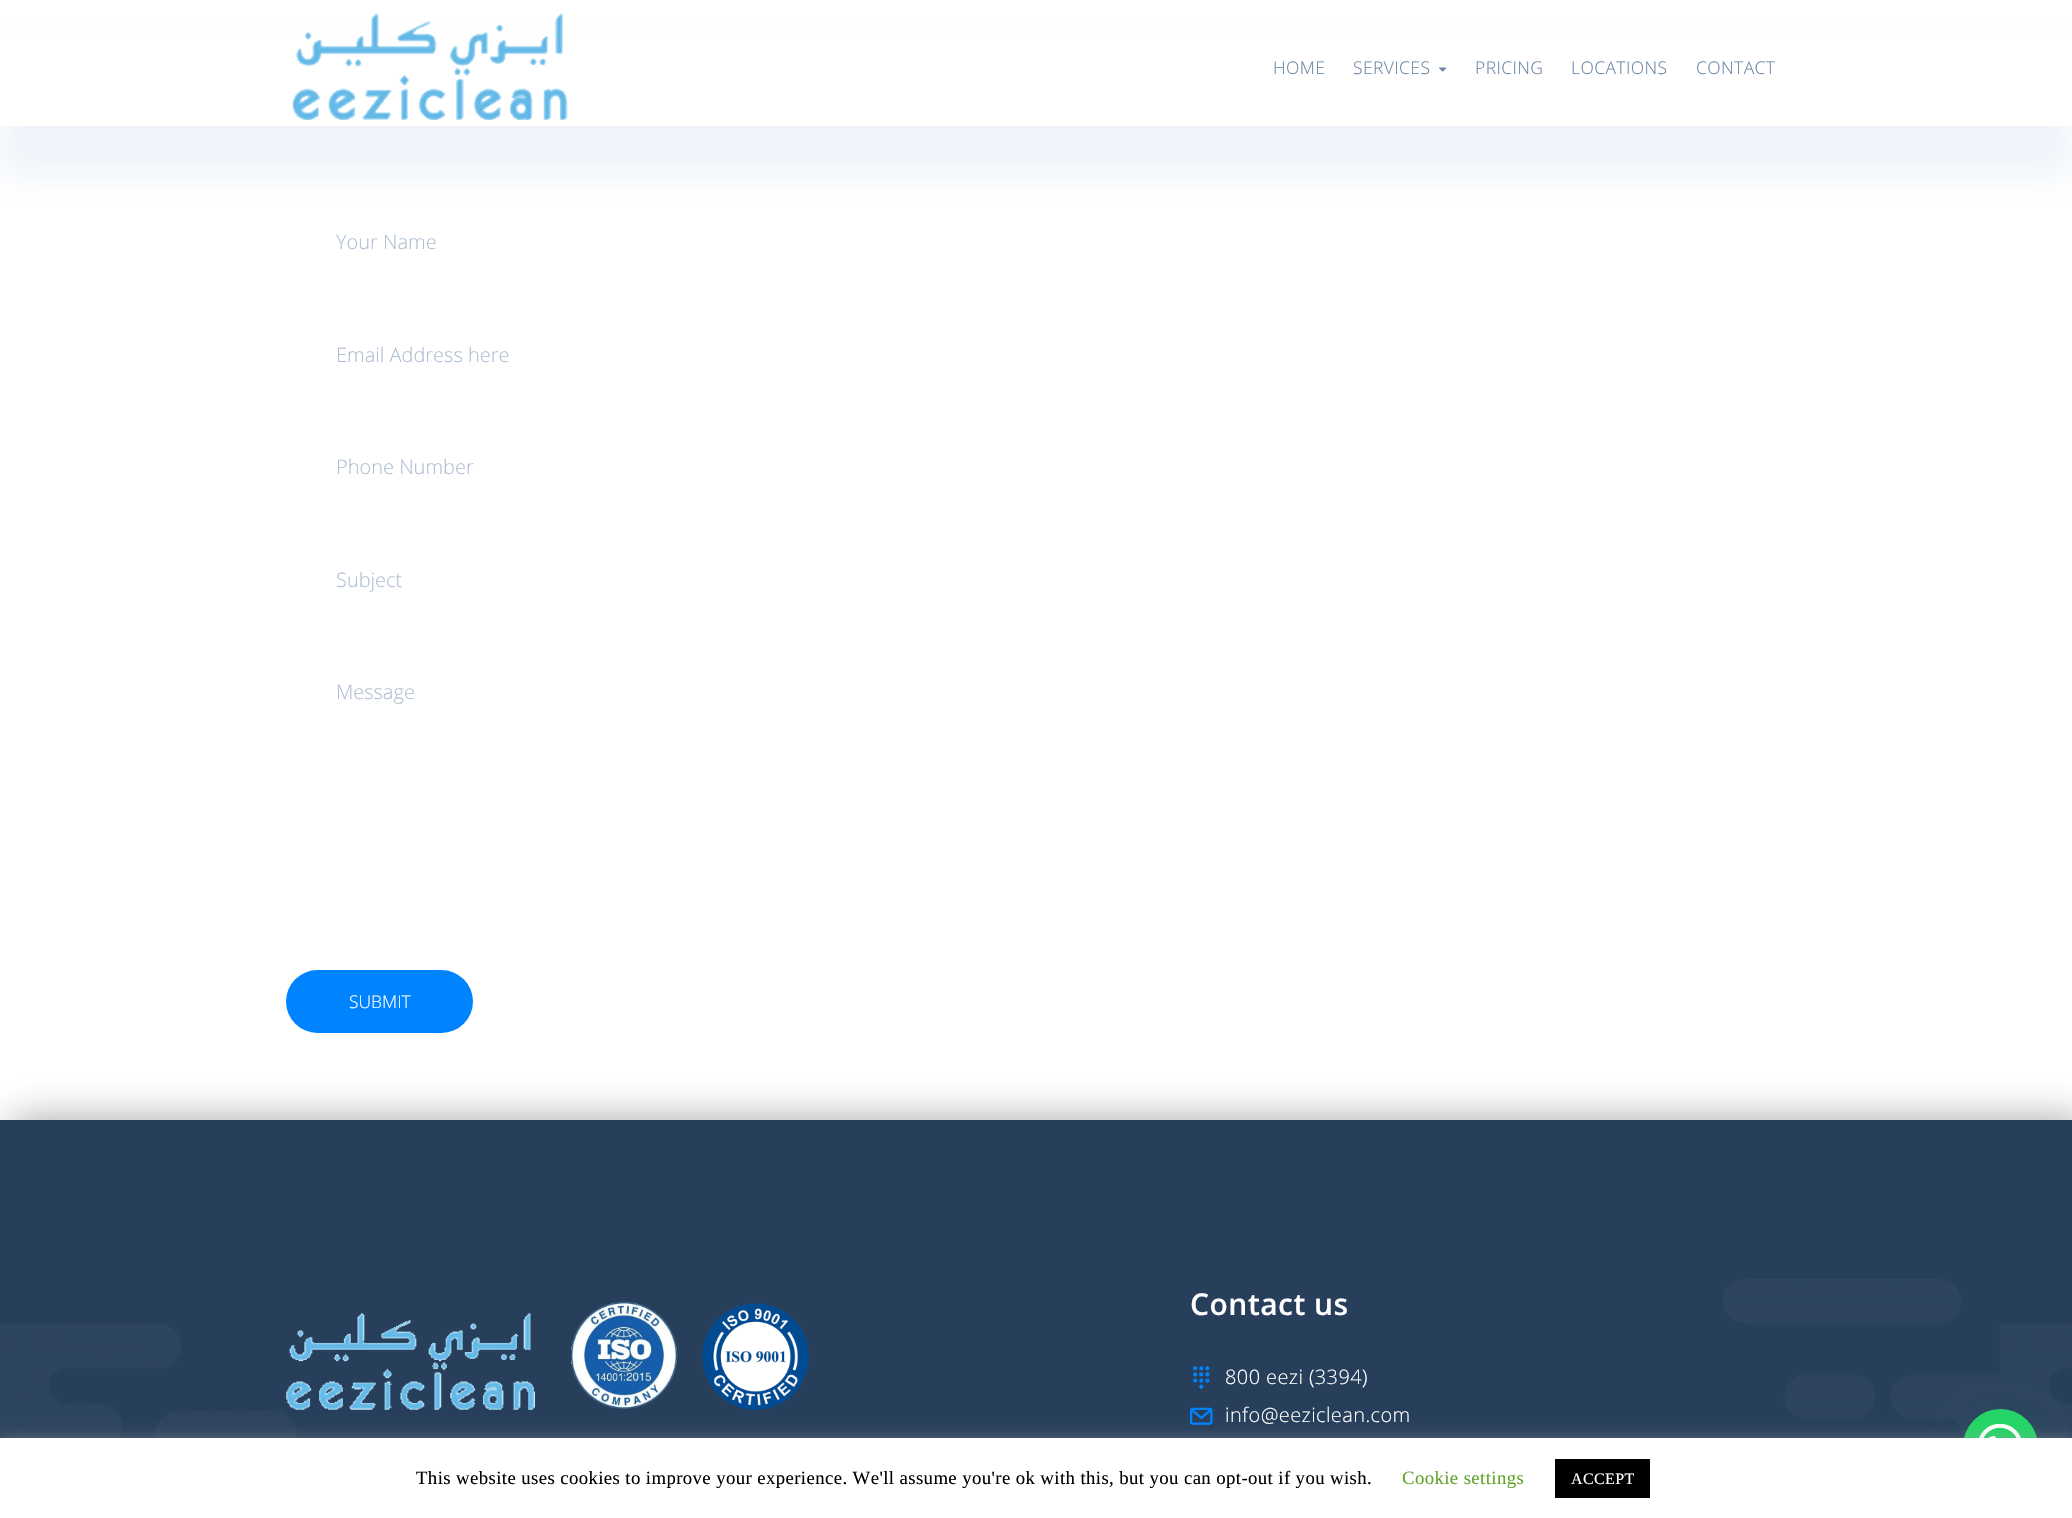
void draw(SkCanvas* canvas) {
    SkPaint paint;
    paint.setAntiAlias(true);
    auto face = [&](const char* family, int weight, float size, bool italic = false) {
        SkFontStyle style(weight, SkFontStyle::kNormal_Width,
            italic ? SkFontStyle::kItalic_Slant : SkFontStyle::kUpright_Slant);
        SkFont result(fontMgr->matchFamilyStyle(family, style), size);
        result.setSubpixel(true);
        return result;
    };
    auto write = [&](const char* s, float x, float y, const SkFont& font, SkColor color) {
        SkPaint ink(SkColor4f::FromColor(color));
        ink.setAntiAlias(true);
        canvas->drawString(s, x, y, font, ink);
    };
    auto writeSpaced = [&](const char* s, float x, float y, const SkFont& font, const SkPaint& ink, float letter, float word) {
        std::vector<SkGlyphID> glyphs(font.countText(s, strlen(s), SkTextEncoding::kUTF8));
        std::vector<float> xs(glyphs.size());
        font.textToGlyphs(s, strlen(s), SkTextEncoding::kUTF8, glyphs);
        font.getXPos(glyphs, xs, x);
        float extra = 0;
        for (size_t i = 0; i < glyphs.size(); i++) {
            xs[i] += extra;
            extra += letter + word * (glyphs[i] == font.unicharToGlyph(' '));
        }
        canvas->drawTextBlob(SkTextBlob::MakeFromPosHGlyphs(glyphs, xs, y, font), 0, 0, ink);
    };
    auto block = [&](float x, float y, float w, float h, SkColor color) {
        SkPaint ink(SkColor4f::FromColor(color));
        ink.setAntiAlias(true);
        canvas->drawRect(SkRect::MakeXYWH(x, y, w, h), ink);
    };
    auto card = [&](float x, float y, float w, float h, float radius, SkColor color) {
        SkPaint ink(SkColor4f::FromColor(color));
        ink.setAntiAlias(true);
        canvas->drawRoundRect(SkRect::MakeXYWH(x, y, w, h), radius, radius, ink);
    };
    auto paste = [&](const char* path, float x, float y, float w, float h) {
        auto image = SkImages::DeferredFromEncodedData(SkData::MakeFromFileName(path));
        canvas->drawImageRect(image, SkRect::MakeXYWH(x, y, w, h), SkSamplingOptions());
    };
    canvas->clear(SK_ColorWHITE);
    paint.setColor(SkColorSetARGB(77, 200, 219, 239));
    paint.setMaskFilter(SkMaskFilter::MakeBlur(kNormal_SkBlurStyle, 15.5f));
    canvas->drawRect(SkRect::MakeXYWH(0, 50, 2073, 126), paint);
    paint.setMaskFilter(nullptr);
    block(0, 34, 2072, 92, SK_ColorWHITE);
    paste("pic1.png", 292, 13, 276, 107);
    auto kFont1 = face("Open Sans", 300, 17.5f);
    paint.setColor(SkColorSetRGB(106, 133, 166));
    writeSpaced("HOME", 1273, 74, kFont1, paint, 0.4f, 0);
    writeSpaced("SERVICES", 1353, 74, kFont1, paint, 0.4f, 0);
    paste("pic2.png", 1439, 67, 8, 5);
    writeSpaced("PRICING", 1475, 74, kFont1, paint, 0.4f, 0);
    writeSpaced("LOCATIONS", 1571, 74, kFont1, paint, 0.4f, 0);
    writeSpaced("CONTACT", 1696, 74, kFont1, paint, 0.4f, 0);
    auto kFont2 = face("Open Sans", 300, 20);
    write("Your Name", 336, 249, kFont2, SkColorSetRGB(174, 190, 210));
    write("Email Address here", 336, 362, kFont2, SkColorSetRGB(174, 190, 210));
    write("Phone Number", 336, 474, kFont2, SkColorSetRGB(174, 190, 210));
    write("Subject", 336, 587, kFont2, SkColorSetRGB(174, 190, 210));
    write("Message", 336, 699, kFont2, SkColorSetRGB(174, 190, 210));
    card(286, 970, 187, 63, 31.5f, SkColorSetRGB(0, 131, 255));
    write("SUBMIT", 349, 1008, kFont1, SK_ColorWHITE);
    paint.setColor(SkColorSetARGB(102, 18, 25, 33));
    paint.setMaskFilter(SkMaskFilter::MakeBlur(kNormal_SkBlurStyle, 19));
    canvas->drawRect(SkRect::MakeXYWH(13, 1120, 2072, 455), paint);
    paint.setMaskFilter(nullptr);
    block(0, 1120, 2072, 318, SkColorSetRGB(39, 63, 91));
    paste("pic3.png", 0, 1279, 2072, 159);
    paste("pic4.png", 286, 1313, 249, 97);
    paste("pic5.png", 571, 1301, 107, 108);
    paste("pic6.png", 702, 1303, 107, 107);
    auto kFont3 = face("Open Sans", 600, 30);
    paint.setColor(SK_ColorWHITE);
    writeSpaced("Contact us", 1190, 1315, kFont3, paint, 0.5f, 0);
    paste("pic7.png", 1193, 1366, 17, 23);
    writeSpaced("800 eezi (3394)", 1225, 1384, kFont2, paint, 0.4f, 0);
    paste("pic8.png", 1190, 1407, 23, 18);
    writeSpaced("info@eeziclean.com", 1225, 1422, kFont2, paint, 0.4f, 0);
    paint.setColor(SkColorSetARGB(61, 7, 94, 84));
    paint.setMaskFilter(SkMaskFilter::MakeBlur(kNormal_SkBlurStyle, 15));
    canvas->drawRoundRect(SkRect::MakeXYWH(1964, 1416, 75, 75), 37.5f, 37.5f, paint);
    paint.setMaskFilter(nullptr);
    paint.setColor(SkColorSetRGB(37, 211, 102));
    canvas->drawCircle(2000.5f, 1446.5f, 37.5f, paint);
    paste("pic9.png", 1979, 1424, 42, 14);
    paint.setColor(SkColorSetARGB(77, 172, 171, 171));
    paint.setMaskFilter(SkMaskFilter::MakeBlur(kNormal_SkBlurStyle, 6));
    canvas->drawRect(SkRect::MakeXYWH(0, 1436, 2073, 82), paint);
    paint.setMaskFilter(nullptr);
    block(0, 1438, 2072, 80, SK_ColorWHITE);
    auto kFont4 = face("Liberation Serif", 400, 18.75f);
    paint.setColor(SK_ColorBLACK);
    writeSpaced("This website uses cookies to improve your experience. We'll assume you're ok with this, but you can opt-out if you wish.", 416, 1484, kFont4, paint, 0.4f, 0);
    paint.setColor(SkColorSetRGB(98, 163, 41));
    writeSpaced("Cookie settings", 1402, 1484, kFont4, paint, 0.4f, 0);
    block(1555, 1459, 95, 39, SK_ColorBLACK);
    auto kFont5 = face("Liberation Serif", 400, 16);
    paint.setColor(SK_ColorWHITE);
    writeSpaced("ACCEPT", 1571, 1484, kFont5, paint, 0.4f, 0);
}
